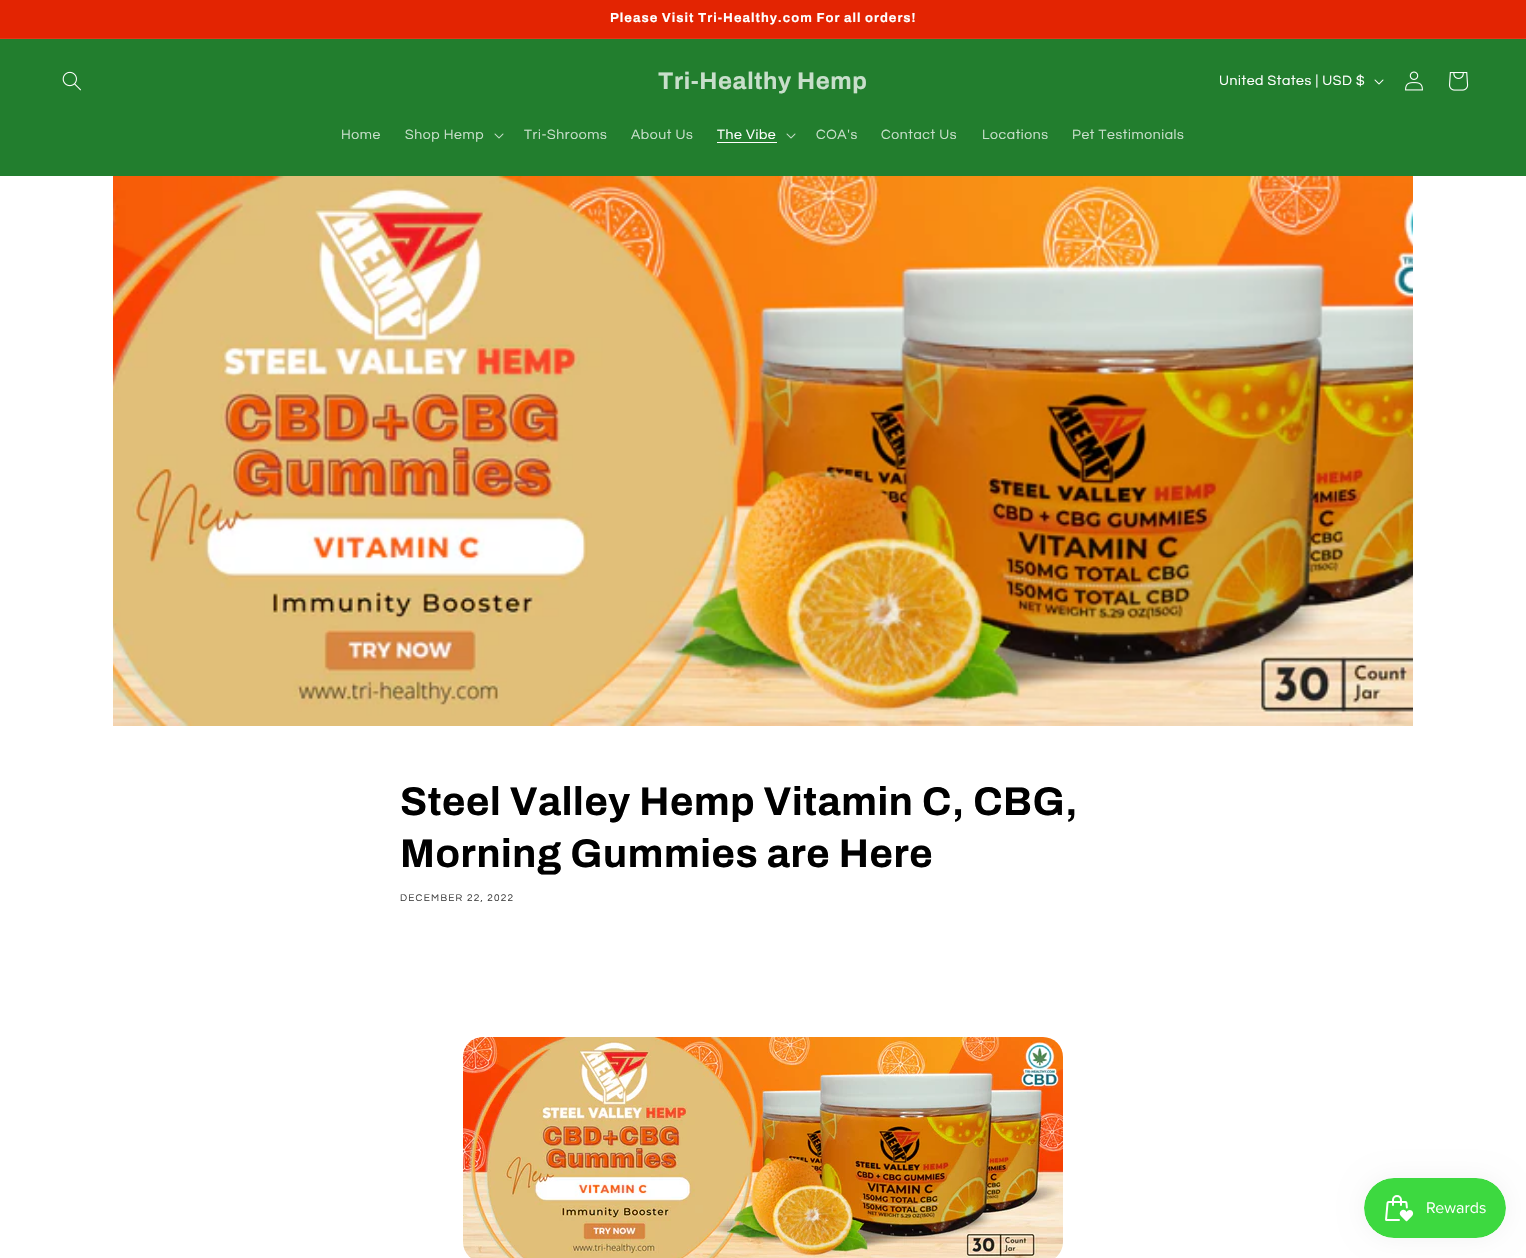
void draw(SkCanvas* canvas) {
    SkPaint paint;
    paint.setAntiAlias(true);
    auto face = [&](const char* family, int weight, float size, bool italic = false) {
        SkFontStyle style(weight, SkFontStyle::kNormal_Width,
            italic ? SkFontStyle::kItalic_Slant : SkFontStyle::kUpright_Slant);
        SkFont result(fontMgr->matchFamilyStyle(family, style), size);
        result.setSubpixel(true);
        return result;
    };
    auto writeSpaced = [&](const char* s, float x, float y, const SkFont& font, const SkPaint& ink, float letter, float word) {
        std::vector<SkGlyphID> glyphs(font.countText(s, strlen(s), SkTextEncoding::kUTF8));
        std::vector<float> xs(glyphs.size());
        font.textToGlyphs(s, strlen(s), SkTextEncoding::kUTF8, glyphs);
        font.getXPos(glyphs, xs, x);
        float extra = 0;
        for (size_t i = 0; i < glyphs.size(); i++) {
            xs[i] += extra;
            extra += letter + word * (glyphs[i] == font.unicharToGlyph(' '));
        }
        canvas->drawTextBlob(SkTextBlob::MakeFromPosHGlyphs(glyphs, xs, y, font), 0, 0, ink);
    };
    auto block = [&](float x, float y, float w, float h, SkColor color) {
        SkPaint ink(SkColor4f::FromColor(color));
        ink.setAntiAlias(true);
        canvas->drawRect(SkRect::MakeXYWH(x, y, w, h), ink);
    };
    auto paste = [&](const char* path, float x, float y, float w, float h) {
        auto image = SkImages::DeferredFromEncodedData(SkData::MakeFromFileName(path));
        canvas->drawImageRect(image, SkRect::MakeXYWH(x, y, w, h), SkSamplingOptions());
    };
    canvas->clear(SK_ColorWHITE);
    block(0, 0, 1526, 38, SkColorSetRGB(227, 36, 2));
    block(0, 38, 1526, 1, SkColorSetRGB(229, 54, 22));
    auto kFont1 = face("Archivo", 700, 13);
    paint.setColor(SK_ColorWHITE);
    writeSpaced("Please Visit Tri-Healthy.com For all orders!", 610, 22, kFont1, paint, 1, 0);
    block(0, 39, 1526, 137, SkColorSetRGB(34, 126, 46));
    paste("pic1.png", 62, 71, 19, 20);
    auto kFont2 = face("Archivo", 700, 24);
    paint.setColor(SkColorSetRGB(200, 223, 203));
    writeSpaced("Tri-Healthy Hemp", 658, 89, kFont2, paint, 0.6f, 0);
    auto kFont3 = face("Questrial", 400, 14);
    paint.setColor(SK_ColorWHITE);
    writeSpaced("United States | USD $", 1219, 85, kFont3, paint, 0.6f, 0);
    paste("pic2.png", 1374, 79, 10, 6);
    paste("pic3.png", 1405, 71, 18, 20);
    paste("pic4.png", 1449, 72, 20, 19);
    paint.setColor(SkColorSetRGB(200, 223, 203));
    writeSpaced("Home", 341, 139, kFont3, paint, 0.6f, 0);
    writeSpaced("Shop Hemp", 405, 139, kFont3, paint, 0.6f, 0);
    paste("pic5.png", 494, 133, 10, 6);
    writeSpaced("Tri-Shrooms", 524, 139, kFont3, paint, 0.6f, 0);
    writeSpaced("About Us", 631, 139, kFont3, paint, 0.6f, 0);
    paint.setColor(SK_ColorWHITE);
    writeSpaced("The Vibe", 717, 139, kFont3, paint, 0.6f, 0);
    block(717, 142, 60, 1, SK_ColorWHITE);
    paste("pic5.png", 786, 133, 10, 6);
    paint.setColor(SkColorSetRGB(200, 223, 203));
    writeSpaced("COA's", 816, 139, kFont3, paint, 0.6f, 0);
    writeSpaced("Contact Us", 881, 139, kFont3, paint, 0.6f, 0);
    writeSpaced("Locations", 982, 139, kFont3, paint, 0.6f, 0);
    writeSpaced("Pet Testimonials", 1072, 139, kFont3, paint, 0.6f, 0);
    paste("pic6.png", 113, 176, 1300, 550);
    auto kFont4 = face("Archivo", 700, 40);
    paint.setColor(SK_ColorBLACK);
    writeSpaced("Steel Valley Hemp Vitamin C, CBG,", 400, 815, kFont4, paint, 0.6f, 0);
    writeSpaced("Morning Gummies are Here", 400, 867, kFont4, paint, 0.6f, 0);
    auto kFont5 = face("Questrial", 400, 10);
    paint.setColor(SkColorSetRGB(64, 64, 64));
    writeSpaced("DECEMBER 22, 2022", 400, 901, kFont5, paint, 1.25f, 0);
    paste("pic7.png", 463, 1037, 600, 221);
    paint.setColor(SkColorSetARGB(13, 0, 0, 0));
    paint.setMaskFilter(SkMaskFilter::MakeBlur(kNormal_SkBlurStyle, 12.5f));
    canvas->drawRoundRect(SkRect::MakeXYWH(1364, 1178, 142, 60), 30, 30, paint);
    paint.setMaskFilter(nullptr);
    paste("pic8.png", 1364, 1178, 142, 60);
}
